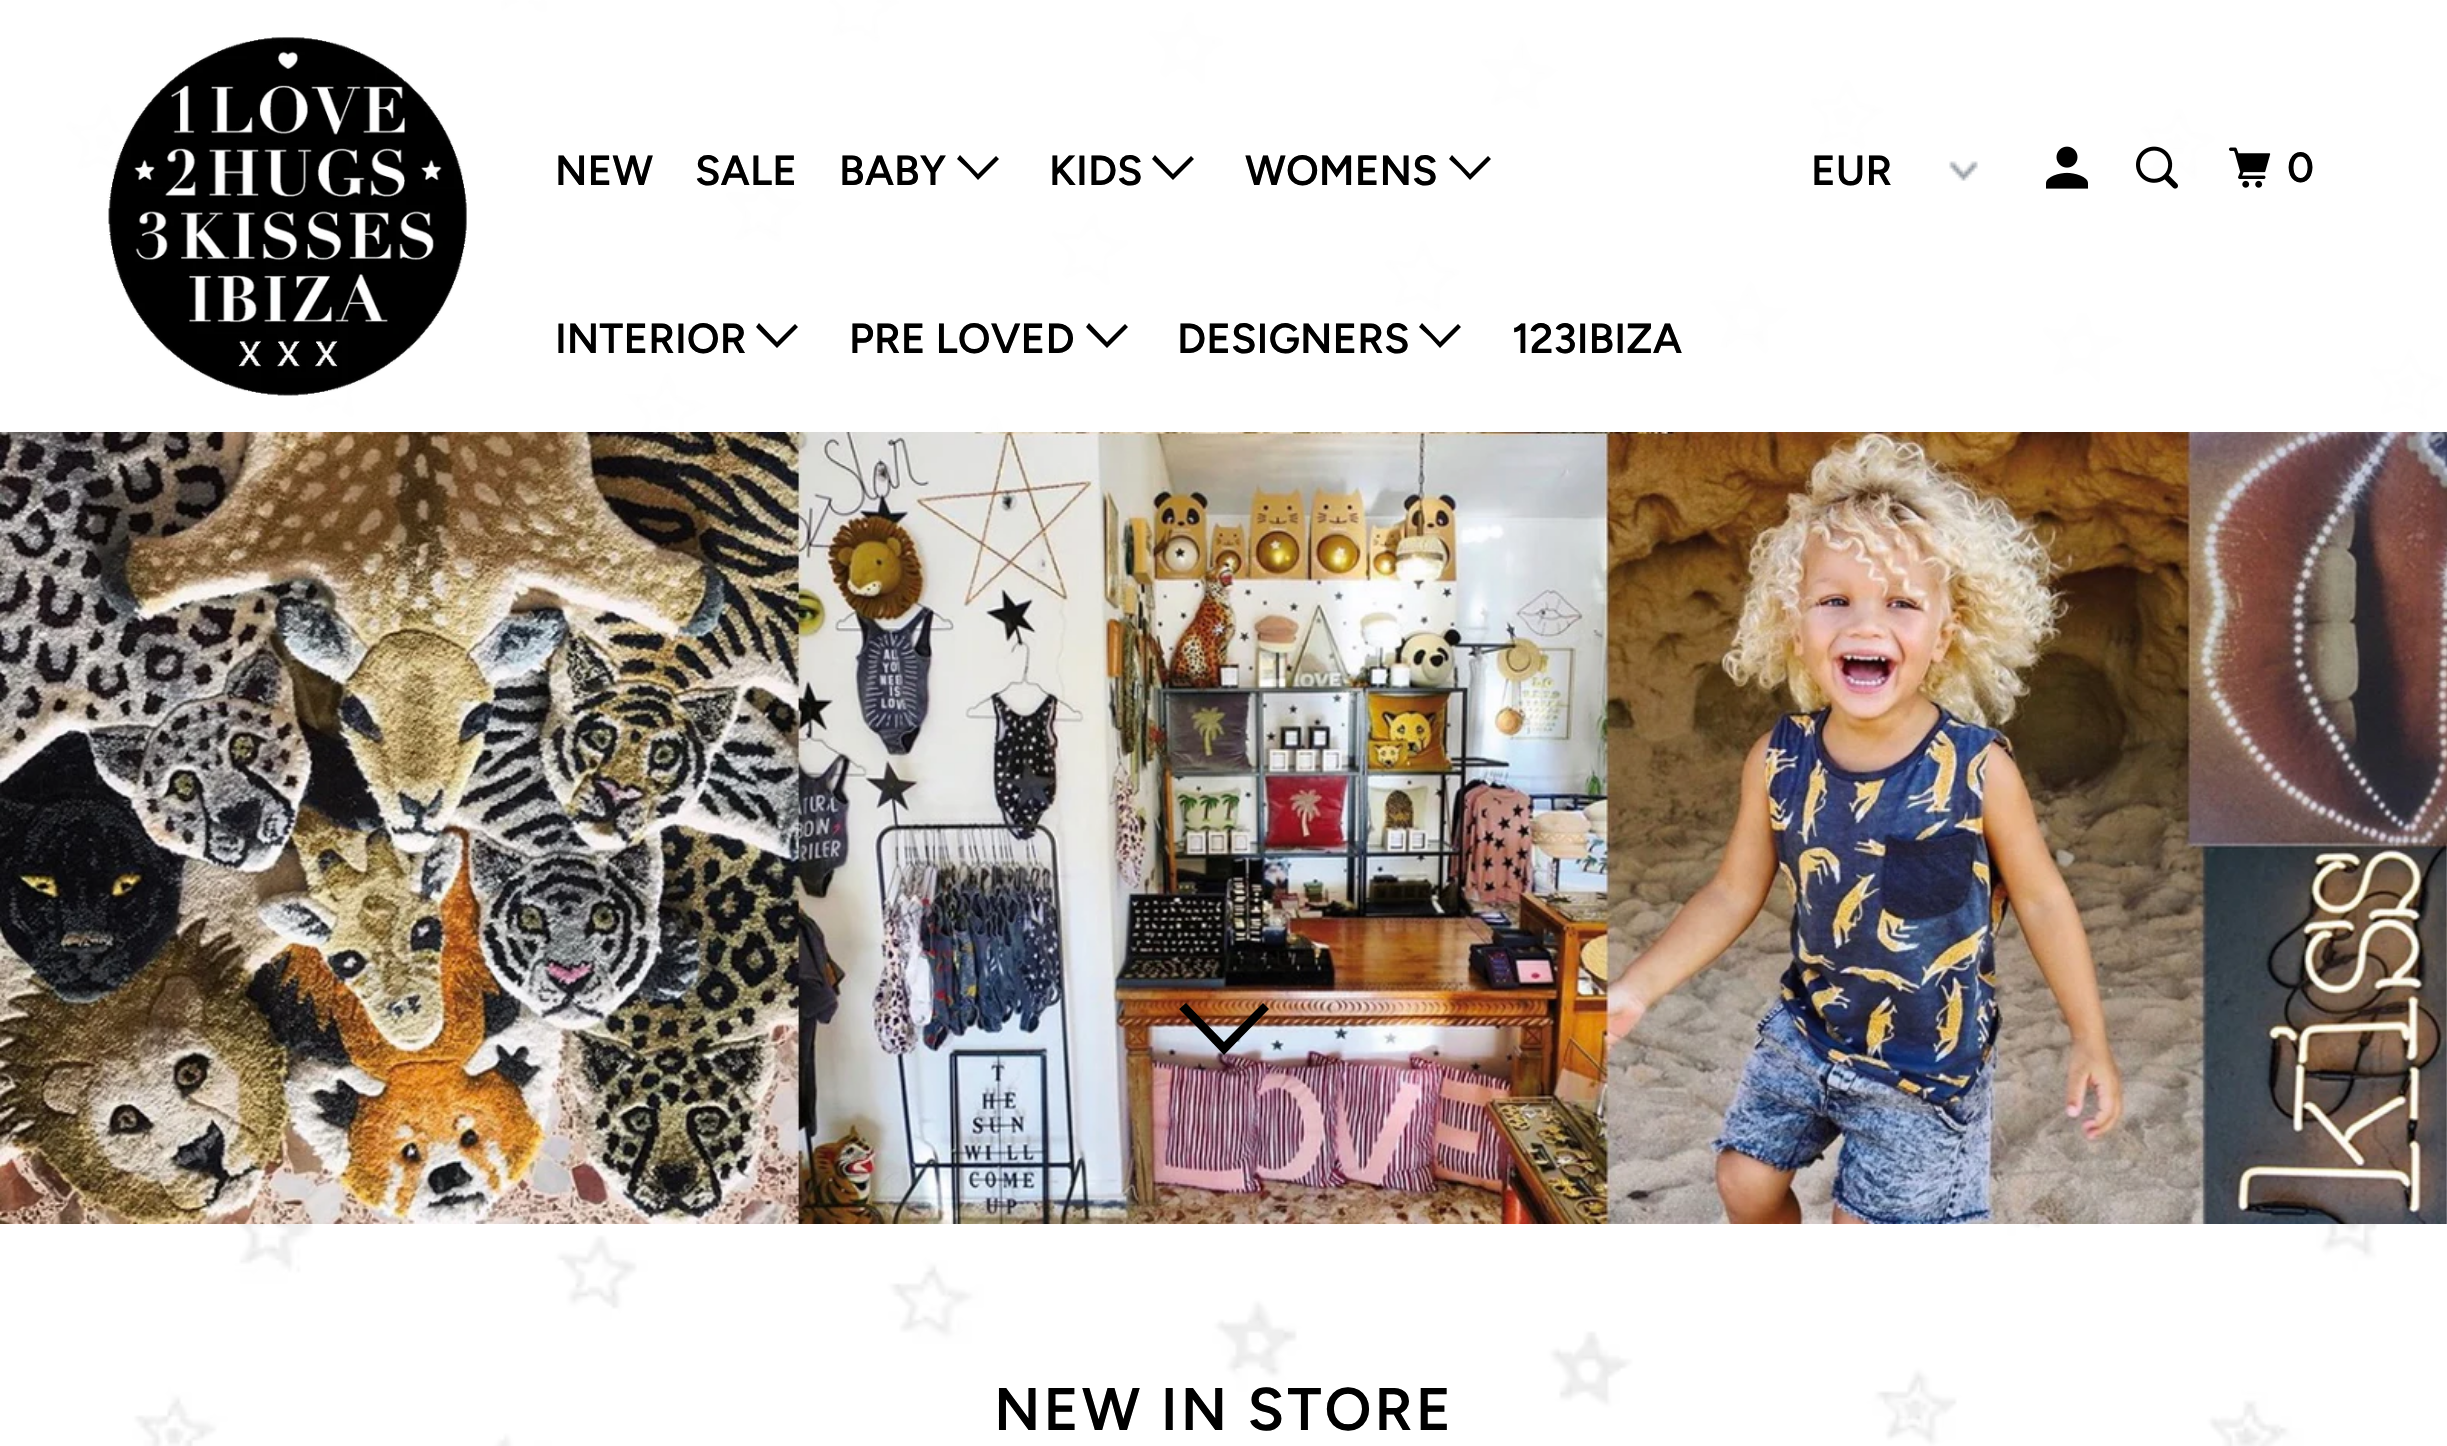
void draw(SkCanvas* canvas) {
    SkPaint paint;
    paint.setAntiAlias(true);
    auto face = [&](const char* family, int weight, float size, bool italic = false) {
        SkFontStyle style(weight, SkFontStyle::kNormal_Width,
            italic ? SkFontStyle::kItalic_Slant : SkFontStyle::kUpright_Slant);
        SkFont result(fontMgr->matchFamilyStyle(family, style), size);
        result.setSubpixel(true);
        return result;
    };
    auto write = [&](const char* s, float x, float y, const SkFont& font, SkColor color) {
        SkPaint ink(SkColor4f::FromColor(color));
        ink.setAntiAlias(true);
        canvas->drawString(s, x, y, font, ink);
    };
    auto writeSpaced = [&](const char* s, float x, float y, const SkFont& font, const SkPaint& ink, float letter, float word) {
        std::vector<SkGlyphID> glyphs(font.countText(s, strlen(s), SkTextEncoding::kUTF8));
        std::vector<float> xs(glyphs.size());
        font.textToGlyphs(s, strlen(s), SkTextEncoding::kUTF8, glyphs);
        font.getXPos(glyphs, xs, x);
        float extra = 0;
        for (size_t i = 0; i < glyphs.size(); i++) {
            xs[i] += extra;
            extra += letter + word * (glyphs[i] == font.unicharToGlyph(' '));
        }
        canvas->drawTextBlob(SkTextBlob::MakeFromPosHGlyphs(glyphs, xs, y, font), 0, 0, ink);
    };
    auto block = [&](float x, float y, float w, float h, SkColor color) {
        SkPaint ink(SkColor4f::FromColor(color));
        ink.setAntiAlias(true);
        canvas->drawRect(SkRect::MakeXYWH(x, y, w, h), ink);
    };
    auto paste = [&](const char* path, float x, float y, float w, float h) {
        auto image = SkImages::DeferredFromEncodedData(SkData::MakeFromFileName(path));
        canvas->drawImageRect(image, SkRect::MakeXYWH(x, y, w, h), SkSamplingOptions());
    };
    canvas->clear(SK_ColorWHITE);
    paste("pic1.png", 64, 0, 2383, 1446);
    block(64, 0, 2383, 432, SkColorSetARGB(230, 255, 255, 255));
    paste("pic2.png", 108, 37, 359, 359);
    auto kFont1 = face("Figtree", 600, 42);
    write("NEW", 555, 185, kFont1, SK_ColorBLACK);
    write("SALE", 695, 185, kFont1, SK_ColorBLACK);
    write("BABY", 839, 185, kFont1, SK_ColorBLACK);
    paint.setColor(SK_ColorBLACK);
    canvas->drawPath(SkPathBuilder().moveTo(968, 169).lineTo(957, 159).lineTo(960, 155).lineTo(978, 174).lineTo(996, 156).lineTo(999, 159).lineTo(978, 180).close().detach(), paint);
    write("KIDS", 1049, 185, kFont1, SK_ColorBLACK);
    canvas->drawPath(SkPathBuilder().moveTo(1162, 169).lineTo(1152, 159).lineTo(1155, 155).lineTo(1173, 174).lineTo(1191, 156).lineTo(1194, 159).lineTo(1173, 180).close().detach(), paint);
    write("WOMENS", 1245, 185, kFont1, SK_ColorBLACK);
    canvas->drawPath(SkPathBuilder().moveTo(1460, 169).lineTo(1449, 159).lineTo(1452, 155).lineTo(1470, 174).lineTo(1488, 156).lineTo(1491, 159).lineTo(1470, 180).close().detach(), paint);
    write("INTERIOR", 555, 353, kFont1, SK_ColorBLACK);
    canvas->drawPath(SkPathBuilder().moveTo(766, 337).lineTo(756, 327).lineTo(759, 323).lineTo(777, 342).lineTo(795, 324).lineTo(798, 327).lineTo(777, 348).close().detach(), paint);
    write("PRE LOVED", 849, 353, kFont1, SK_ColorBLACK);
    canvas->drawPath(SkPathBuilder().moveTo(1096, 337).lineTo(1086, 327).lineTo(1089, 323).lineTo(1107, 342).lineTo(1125, 324).lineTo(1128, 327).lineTo(1107, 348).close().detach(), paint);
    write("DESIGNERS", 1177, 353, kFont1, SK_ColorBLACK);
    canvas->drawPath(SkPathBuilder().moveTo(1430, 337).lineTo(1419, 327).lineTo(1422, 323).lineTo(1440, 342).lineTo(1458, 324).lineTo(1461, 327).lineTo(1440, 348).close().detach(), paint);
    write("123IBIZA", 1512, 353, kFont1, SK_ColorBLACK);
    paste("pic3.png", 1949, 161, 29, 20);
    write("EUR", 1811, 185, kFont1, SK_ColorBLACK);
    paste("pic4.png", 2046, 146, 42, 43);
    paste("pic5.png", 2136, 146, 42, 43);
    paste("pic6.png", 2229, 147, 42, 41);
    write("0", 2287, 182, kFont1, SK_ColorBLACK);
    paste("pic7.png", 0, 432, 2447, 792);
    canvas->drawPath(SkPathBuilder().moveTo(1202, 1032).lineTo(1179, 1009).lineTo(1186, 1003).lineTo(1224, 1042).lineTo(1263, 1003).lineTo(1269, 1009).lineTo(1224, 1055).close().detach(), paint);
    auto kFont2 = face("Figtree", 600, 60);
    writeSpaced("NEW IN STORE", 994, 1430, kFont2, paint, 3, 0);
}
